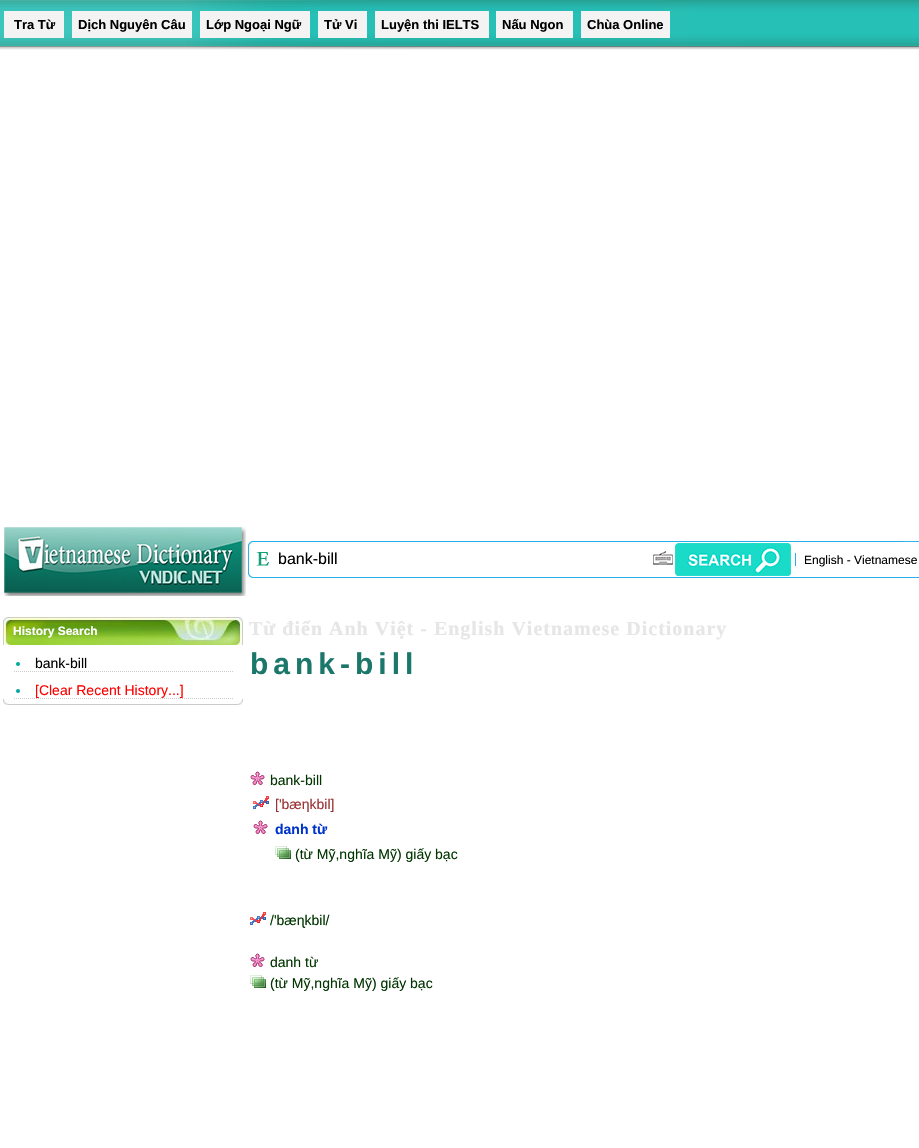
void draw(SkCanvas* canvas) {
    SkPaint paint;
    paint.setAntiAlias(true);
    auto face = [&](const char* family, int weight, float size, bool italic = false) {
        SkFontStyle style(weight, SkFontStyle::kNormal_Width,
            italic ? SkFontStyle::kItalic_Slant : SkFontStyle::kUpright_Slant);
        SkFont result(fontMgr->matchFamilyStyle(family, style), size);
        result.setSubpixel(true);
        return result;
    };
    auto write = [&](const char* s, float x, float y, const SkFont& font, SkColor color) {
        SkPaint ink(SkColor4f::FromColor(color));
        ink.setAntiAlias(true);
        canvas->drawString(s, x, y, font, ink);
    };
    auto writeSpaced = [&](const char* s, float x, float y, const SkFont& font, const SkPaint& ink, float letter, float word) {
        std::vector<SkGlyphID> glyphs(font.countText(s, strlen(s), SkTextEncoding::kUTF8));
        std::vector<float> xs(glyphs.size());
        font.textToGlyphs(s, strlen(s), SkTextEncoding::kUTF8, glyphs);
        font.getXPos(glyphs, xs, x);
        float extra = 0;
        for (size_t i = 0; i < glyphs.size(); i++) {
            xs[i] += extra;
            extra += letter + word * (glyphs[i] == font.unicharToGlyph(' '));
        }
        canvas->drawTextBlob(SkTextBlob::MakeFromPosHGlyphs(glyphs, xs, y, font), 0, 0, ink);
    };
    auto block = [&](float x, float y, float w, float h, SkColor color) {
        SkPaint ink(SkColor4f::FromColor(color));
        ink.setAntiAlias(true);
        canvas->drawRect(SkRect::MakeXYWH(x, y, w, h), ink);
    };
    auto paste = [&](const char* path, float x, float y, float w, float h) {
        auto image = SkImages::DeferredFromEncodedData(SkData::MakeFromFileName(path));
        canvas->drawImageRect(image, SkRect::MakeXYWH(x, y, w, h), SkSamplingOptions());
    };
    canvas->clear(SK_ColorWHITE);
    paste("pic1.png", 0, 0, 919, 50);
    block(4, 11, 60, 27, SkColorSetRGB(243, 243, 243));
    auto kFont1 = face("Liberation Sans", 700, 13);
    write("Tra Từ", 14, 29, kFont1, SK_ColorBLACK);
    block(72, 11, 120, 27, SkColorSetRGB(243, 243, 243));
    write("Dịch Nguyên Câu", 78, 29, kFont1, SK_ColorBLACK);
    block(200, 11, 110, 27, SkColorSetRGB(243, 243, 243));
    write("Lớp Ngoại Ngữ", 206, 29, kFont1, SK_ColorBLACK);
    block(318, 11, 49, 27, SkColorSetRGB(243, 243, 243));
    write("Tử Vi", 324, 29, kFont1, SK_ColorBLACK);
    block(375, 11, 114, 27, SkColorSetRGB(243, 243, 243));
    write("Luyện thi IELTS", 381, 29, kFont1, SK_ColorBLACK);
    block(496, 11, 77, 27, SkColorSetRGB(243, 243, 243));
    write("Nấu Ngon", 502, 29, kFont1, SK_ColorBLACK);
    block(581, 11, 89, 27, SkColorSetRGB(243, 243, 243));
    write("Chùa Online", 587, 29, kFont1, SK_ColorBLACK);
    paste("pic2.png", 4, 527, 242, 69);
    paste("pic3.png", 248, 541, 671, 37);
    paste("pic4.png", 256, 552, 13, 14);
    auto kFont2 = face("Liberation Sans", 400, 16);
    write("bank-bill", 278, 564, kFont2, SK_ColorBLACK);
    paste("pic5.png", 653, 551, 20, 14);
    paste("pic6.png", 675, 543, 116, 33);
    block(795, 553, 1, 13, SkColorSetRGB(40, 176, 234));
    auto kFont3 = face("Liberation Sans", 400, 12);
    write("English - Vietnamese", 804, 564, kFont3, SK_ColorBLACK);
    paste("pic7.png", 3, 617, 240, 28);
    auto kFont4 = face("Liberation Sans", 700, 12);
    write("History Search", 13, 635, kFont4, SK_ColorWHITE);
    paint.setStyle(SkPaint::kStroke_Style);
    paint.setStrokeWidth(1);
    paint.setColor(SkColorSetRGB(204, 204, 204));
    paint.setPathEffect(SkDashPathEffect::Make({{1, 1}}, 0));
    canvas->drawPath(SkPathBuilder().moveTo(14, 671.5f).lineTo(234, 671.5f).detach(), paint);
    paint.setPathEffect(nullptr);
    paint.setStyle(SkPaint::kFill_Style);
    paint.setColor(SkColorSetRGB(0, 167, 155));
    canvas->drawCircle(18, 664, 2, paint);
    auto kFont5 = face("Liberation Sans", 400, 14);
    write("bank-bill", 35, 668, kFont5, SK_ColorBLACK);
    paint.setStyle(SkPaint::kStroke_Style);
    paint.setColor(SkColorSetRGB(204, 204, 204));
    paint.setPathEffect(SkDashPathEffect::Make({{1, 1}}, 0));
    canvas->drawPath(SkPathBuilder().moveTo(14, 698.5f).lineTo(234, 698.5f).detach(), paint);
    paint.setPathEffect(nullptr);
    paint.setStyle(SkPaint::kFill_Style);
    paint.setColor(SkColorSetRGB(0, 167, 155));
    canvas->drawCircle(18, 691, 2, paint);
    write("[Clear Recent History...]", 35, 695, kFont5, SkColorSetRGB(255, 0, 0));
    paste("pic8.png", 3, 699, 240, 6);
    auto kFont6 = face("Liberation Serif", 700, 20);
    paint.setColor(SkColorSetRGB(230, 230, 230));
    writeSpaced("Từ điển Anh Việt - English Vietnamese Dictionary", 249, 635, kFont6, paint, 1, 0);
    auto kFont7 = face("Liberation Sans", 700, 30);
    paint.setColor(SkColorSetRGB(28, 119, 107));
    writeSpaced("bank-bill", 250, 674, kFont7, paint, 5, 0);
    paste("pic9.png", 250, 771, 15, 14);
    write("bank-bill", 270, 785, kFont5, SkColorSetRGB(0, 53, 0));
    paste("pic10.png", 253, 796, 16, 13);
    write("['bæηkbil]", 275, 809, kFont5, SkColorSetRGB(153, 51, 51));
    paste("pic9.png", 253, 820, 15, 14);
    auto kFont8 = face("Liberation Sans", 700, 14);
    write("danh từ", 275, 834, kFont8, SkColorSetRGB(0, 51, 204));
    paste("pic11.png", 275, 846, 16, 13);
    write("(từ Mỹ,nghĩa Mỹ) giấy bạc", 295, 859, kFont5, SkColorSetRGB(0, 53, 0));
    paste("pic10.png", 250, 912, 16, 13);
    write("/'bæɳkbil/", 270, 925, kFont5, SkColorSetRGB(0, 53, 0));
    paste("pic9.png", 250, 953, 15, 14);
    write("danh từ", 270, 967, kFont5, SkColorSetRGB(0, 53, 0));
    paste("pic11.png", 250, 975, 16, 13);
    write("(từ Mỹ,nghĩa Mỹ) giấy bạc", 270, 988, kFont5, SkColorSetRGB(0, 53, 0));
}
